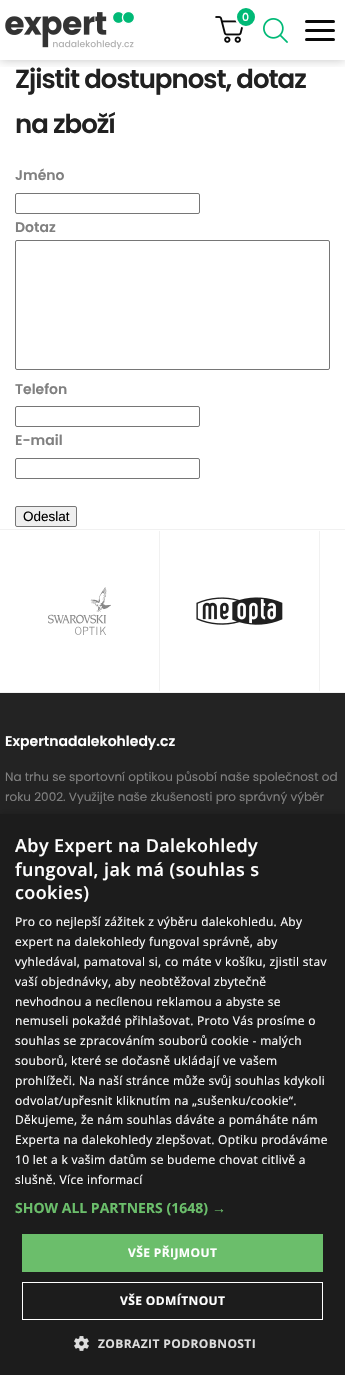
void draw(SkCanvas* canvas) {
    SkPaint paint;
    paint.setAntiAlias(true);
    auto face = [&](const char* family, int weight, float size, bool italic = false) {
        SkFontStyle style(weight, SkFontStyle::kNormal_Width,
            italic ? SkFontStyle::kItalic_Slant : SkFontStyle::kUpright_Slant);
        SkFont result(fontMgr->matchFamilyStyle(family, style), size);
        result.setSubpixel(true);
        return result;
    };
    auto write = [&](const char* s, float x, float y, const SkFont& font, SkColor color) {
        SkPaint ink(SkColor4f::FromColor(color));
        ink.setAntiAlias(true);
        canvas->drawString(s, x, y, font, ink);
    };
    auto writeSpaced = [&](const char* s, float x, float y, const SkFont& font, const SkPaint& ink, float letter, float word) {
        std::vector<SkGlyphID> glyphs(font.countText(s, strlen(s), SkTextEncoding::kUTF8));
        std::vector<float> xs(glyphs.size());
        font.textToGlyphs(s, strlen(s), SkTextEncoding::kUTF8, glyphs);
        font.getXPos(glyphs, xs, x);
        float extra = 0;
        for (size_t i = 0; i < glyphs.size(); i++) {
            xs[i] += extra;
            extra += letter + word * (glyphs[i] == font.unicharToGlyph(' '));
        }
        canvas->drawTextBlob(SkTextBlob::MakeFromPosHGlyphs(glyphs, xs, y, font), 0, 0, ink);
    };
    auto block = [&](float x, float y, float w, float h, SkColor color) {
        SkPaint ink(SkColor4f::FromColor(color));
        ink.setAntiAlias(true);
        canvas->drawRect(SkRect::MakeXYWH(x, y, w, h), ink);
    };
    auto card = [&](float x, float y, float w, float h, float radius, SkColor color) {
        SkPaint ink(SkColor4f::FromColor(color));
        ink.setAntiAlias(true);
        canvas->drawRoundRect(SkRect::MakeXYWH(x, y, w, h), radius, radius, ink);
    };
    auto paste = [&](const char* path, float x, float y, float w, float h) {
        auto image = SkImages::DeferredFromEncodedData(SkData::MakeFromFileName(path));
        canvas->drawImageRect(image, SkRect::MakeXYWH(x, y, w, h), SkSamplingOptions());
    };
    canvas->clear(SK_ColorWHITE);
    canvas->save();
    canvas->clipRect(SkRect::MakeXYWH(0, 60, 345, 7));
    paint.setColor(SkColorSetARGB(59, 0, 0, 0));
    paint.setMaskFilter(SkMaskFilter::MakeBlur(kNormal_SkBlurStyle, 5));
    canvas->drawRect(SkRect::MakeXYWH(0, 0, 345, 60), paint);
    paint.setMaskFilter(nullptr);
    canvas->restore();
    paste("pic1.png", 5, 11, 130, 38);
    paste("pic2.png", 215, 16, 29, 27);
    paint.setColor(SkColorSetRGB(0, 185, 118));
    canvas->drawCircle(246, 17, 10, paint);
    paint.setStyle(SkPaint::kStroke_Style);
    paint.setStrokeWidth(2);
    paint.setColor(SK_ColorWHITE);
    canvas->drawCircle(246, 17, 10, paint);
    auto kFont1 = face("Poppins", 500, 11);
    write("0", 242, 21, kFont1, SK_ColorWHITE);
    paste("pic3.png", 263, 18, 25, 25);
    card(305, 20, 30, 3, 1.5f, SkColorSetRGB(9, 9, 9));
    card(305, 29, 30, 3, 1.5f, SkColorSetRGB(9, 9, 9));
    card(305, 38, 30, 3, 1.5f, SkColorSetRGB(9, 9, 9));
    auto kFont2 = face("Poppins", 600, 26);
    paint.setStyle(SkPaint::kFill_Style);
    paint.setColor(SkColorSetRGB(33, 33, 33));
    writeSpaced("Zjistit dostupnost, dotaz", 15, 88, kFont2, paint, -1, 0);
    writeSpaced("na zboží", 15, 133, kFont2, paint, -1, 0);
    auto kFont3 = face("Poppins", 600, 14);
    write("Jméno", 15, 180, kFont3, SkColorSetRGB(128, 128, 128));
    paint.setStyle(SkPaint::kStroke_Style);
    paint.setStrokeWidth(1);
    paint.setColor(SkColorSetRGB(118, 118, 118));
    canvas->drawRoundRect(SkRect::MakeXYWH(15.5f, 193.5f, 184, 20), 1.5f, 1.5f, paint);
    write("Dotaz", 15, 232, kFont3, SkColorSetRGB(128, 128, 128));
    canvas->drawRoundRect(SkRect::MakeXYWH(15.5f, 240.5f, 314, 129), 1.5f, 1.5f, paint);
    write("Telefon", 15, 394, kFont3, SkColorSetRGB(128, 128, 128));
    canvas->drawRoundRect(SkRect::MakeXYWH(15.5f, 406.5f, 184, 20), 1.5f, 1.5f, paint);
    write("E-mail", 15, 445, kFont3, SkColorSetRGB(128, 128, 128));
    canvas->drawRoundRect(SkRect::MakeXYWH(15.5f, 458.5f, 184, 20), 1.5f, 1.5f, paint);
    paint.setStyle(SkPaint::kFill_Style);
    paint.setColor(SkColorSetRGB(239, 239, 239));
    canvas->drawRoundRect(SkRect::MakeXYWH(15.5f, 506.5f, 61, 20), 1.5f, 1.5f, paint);
    paint.setStyle(SkPaint::kStroke_Style);
    paint.setColor(SkColorSetRGB(118, 118, 118));
    canvas->drawRoundRect(SkRect::MakeXYWH(15.5f, 506.5f, 61, 20), 1.5f, 1.5f, paint);
    auto kFont4 = face("Liberation Sans", 400, 13.5f);
    write("Odeslat", 23, 521, kFont4, SK_ColorBLACK);
    block(0, 529, 345, 1, SkColorSetRGB(241, 241, 241));
    block(0, 692, 345, 1, SkColorSetRGB(241, 241, 241));
    block(159, 531, 1, 160, SkColorSetRGB(241, 241, 241));
    paste("pic4.png", 48, 587, 63, 48);
    block(319, 531, 1, 160, SkColorSetRGB(241, 241, 241));
    paste("pic5.png", 196, 597, 87, 28);
    block(0, 693, 345, 121, SkColorSetRGB(35, 35, 35));
    write("Expertnadalekohledy.cz", 5, 746, kFont3, SK_ColorWHITE);
    auto kFont5 = face("Poppins", 400, 12);
    write("Na trhu se sportovní optikou působí naše společnost od", 5, 781, kFont5, SkColorSetRGB(128, 128, 128));
    write("roku 2002. Využijte naše zkušenosti pro správný výběr", 5, 801, kFont5, SkColorSetRGB(128, 128, 128));
    paint.setStyle(SkPaint::kFill_Style);
    paint.setColor(SkColorSetARGB(89, 0, 0, 0));
    paint.setMaskFilter(SkMaskFilter::MakeBlur(kNormal_SkBlurStyle, 4));
    canvas->drawRect(SkRect::MakeXYWH(1, 816, 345, 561), paint);
    paint.setMaskFilter(nullptr);
    block(0, 814, 345, 561, SkColorSetRGB(28, 28, 28));
    auto kFont6 = face("Open Sans", 600, 18);
    paint.setColor(SK_ColorWHITE);
    writeSpaced("Aby Expert na Dalekohledy", 15, 852, kFont6, paint, 0.4f, 0);
    writeSpaced("fungoval, jak má (souhlas s", 15, 876, kFont6, paint, 0.4f, 0);
    writeSpaced("cookies)", 15, 899, kFont6, paint, 0.4f, 0);
    auto kFont7 = face("Open Sans", 400, 12);
    writeSpaced("Pro co nejlepší zážitek z výběru dalekohledu. Aby", 15, 926, kFont7, paint, 0.3f, 0);
    writeSpaced("expert na dalekohledy fungoval správně, aby", 15, 946, kFont7, paint, 0.3f, 0);
    writeSpaced("vyhledával, pamatoval si, co máte v košíku, zjistil stav", 15, 966, kFont7, paint, 0.3f, 0);
    writeSpaced("vaší objednávky, aby neobtěžoval zbytečně", 15, 986, kFont7, paint, 0.3f, 0);
    writeSpaced("nevhodnou a necílenou reklamou a abyste se", 15, 1006, kFont7, paint, 0.3f, 0);
    writeSpaced("nemuseli pokaždé přihlašovat. Proto Vás prosíme o", 15, 1025, kFont7, paint, 0.3f, 0);
    writeSpaced("souhlas se zpracováním souborů cookie - malých", 15, 1045, kFont7, paint, 0.3f, 0);
    writeSpaced("souborů, které se dočasně ukládají ve vašem", 15, 1065, kFont7, paint, 0.3f, 0);
    writeSpaced("prohlížeči. Na naší stránce může svůj souhlas kdykoli", 15, 1085, kFont7, paint, 0.3f, 0);
    writeSpaced("odvolat/upřesnit kliknutím na „sušenku/cookie“.", 15, 1105, kFont7, paint, 0.3f, 0);
    writeSpaced("Děkujeme, že nám souhlas dáváte a pomáháte nám", 15, 1124, kFont7, paint, 0.3f, 0);
    writeSpaced("Experta na dalekohledy zlepšovat. Optiku prodáváme", 15, 1144, kFont7, paint, 0.3f, 0);
    writeSpaced("10 let a k vašim datům se budeme chovat citlivě a", 15, 1164, kFont7, paint, 0.3f, 0);
    writeSpaced("slušně. Více informací", 15, 1184, kFont7, paint, 0.3f, 0);
    auto kFont8 = face("Open Sans", 700, 14);
    write("SHOW ALL PARTNERS (1648)", 15, 1213, kFont8, SkColorSetRGB(107, 190, 107));
    auto kFont9 = face("Liberation Sans", 700, 14);
    write("→", 212, 1213, kFont9, SkColorSetRGB(107, 190, 107));
    block(22, 1234, 301, 38, SkColorSetRGB(107, 190, 107));
    auto kFont10 = face("Open Sans", 700, 12);
    writeSpaced("VŠE PŘIJMOUT", 128, 1257, kFont10, paint, 0.4f, 0);
    paint.setStyle(SkPaint::kStroke_Style);
    canvas->drawRect(SkRect::MakeXYWH(22.5f, 1282.5f, 300, 37), paint);
    paint.setStyle(SkPaint::kFill_Style);
    writeSpaced("VŠE ODMÍTNOUT", 120, 1305, kFont10, paint, 0.4f, 0);
    paste("pic6.png", 74, 1336, 15, 15);
    paint.setColor(SkColorSetRGB(221, 221, 221));
    writeSpaced("ZOBRAZIT PODROBNOSTI", 98, 1348, kFont10, paint, 0.4f, 0);
}
